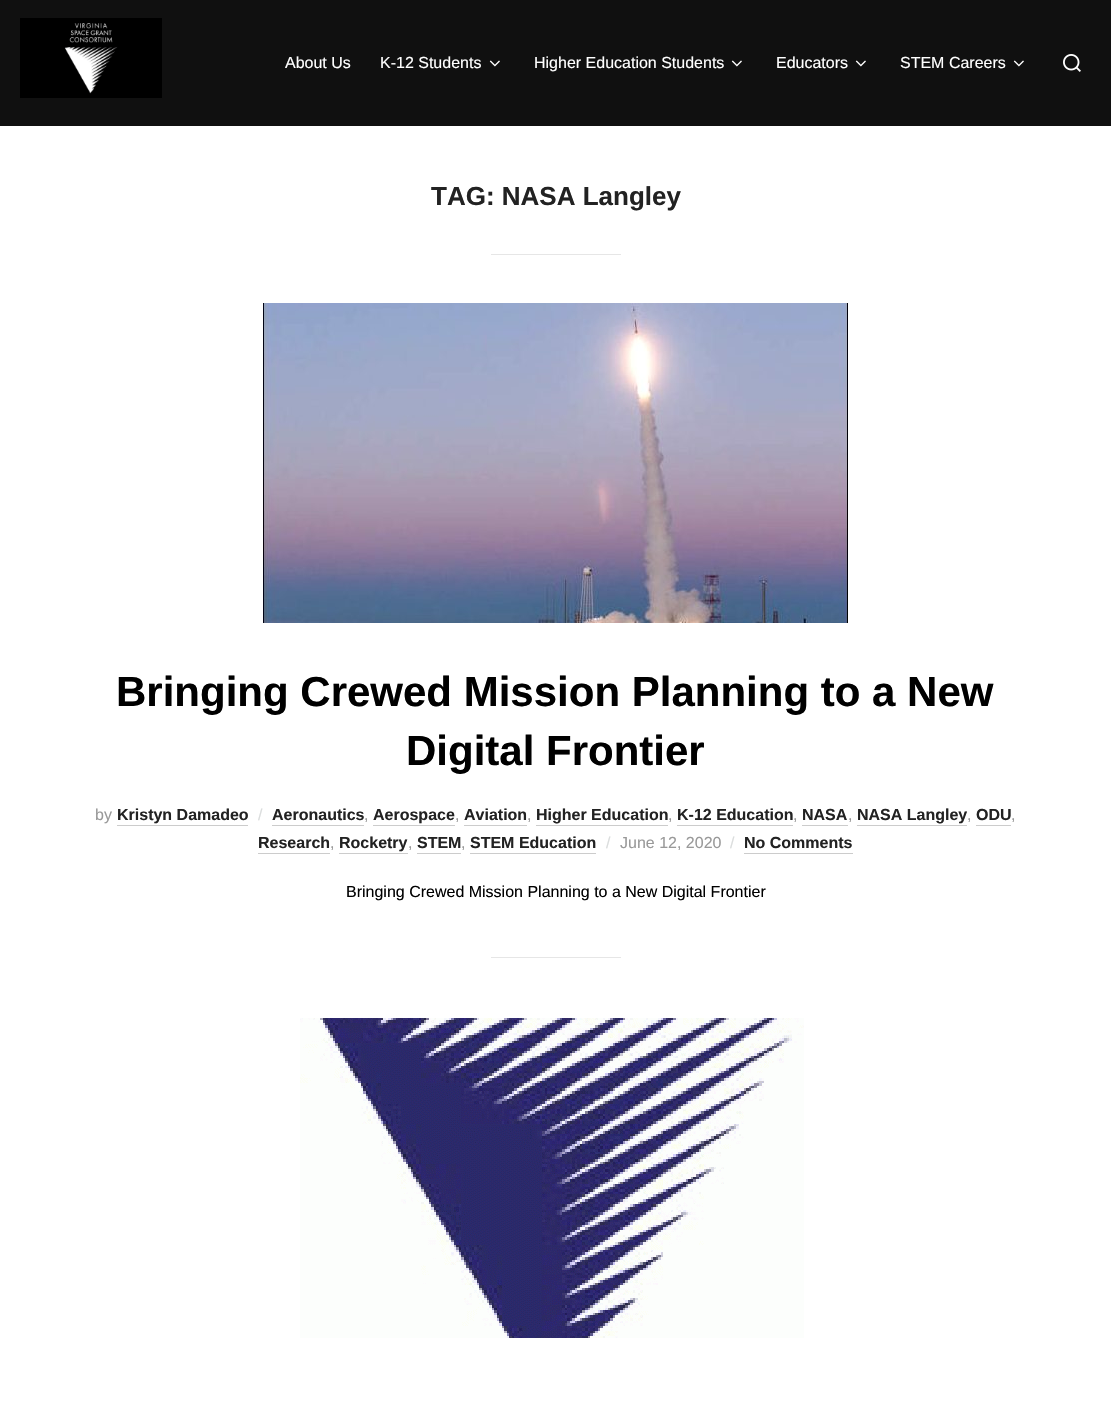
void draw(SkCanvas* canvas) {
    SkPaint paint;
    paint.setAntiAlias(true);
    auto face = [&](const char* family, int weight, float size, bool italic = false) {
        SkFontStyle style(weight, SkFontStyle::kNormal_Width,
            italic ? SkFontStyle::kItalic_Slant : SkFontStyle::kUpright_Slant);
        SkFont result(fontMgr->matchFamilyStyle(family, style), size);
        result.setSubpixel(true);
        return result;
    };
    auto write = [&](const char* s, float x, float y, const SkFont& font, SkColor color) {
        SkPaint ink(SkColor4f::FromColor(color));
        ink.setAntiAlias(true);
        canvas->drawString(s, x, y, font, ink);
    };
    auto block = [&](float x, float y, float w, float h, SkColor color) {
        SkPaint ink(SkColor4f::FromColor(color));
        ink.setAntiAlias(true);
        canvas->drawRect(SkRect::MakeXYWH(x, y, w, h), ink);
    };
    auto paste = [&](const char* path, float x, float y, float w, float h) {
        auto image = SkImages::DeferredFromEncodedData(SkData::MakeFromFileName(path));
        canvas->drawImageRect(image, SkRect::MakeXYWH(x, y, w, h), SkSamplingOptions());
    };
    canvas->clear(SK_ColorWHITE);
    block(0, 0, 1111, 126, SkColorSetRGB(16, 16, 16));
    paste("pic1.png", 20, 18, 142, 80);
    auto kFont1 = face("Liberation Sans", 400, 16);
    write("About Us", 285, 68, kFont1, SK_ColorWHITE);
    write("K-12 Students", 380, 68, kFont1, SK_ColorWHITE);
    paste("pic2.png", 489, 60, 11, 7);
    write("Higher Education Students", 534, 68, kFont1, SK_ColorWHITE);
    paste("pic2.png", 731, 60, 11, 7);
    write("Educators", 776, 68, kFont1, SK_ColorWHITE);
    paste("pic2.png", 855, 60, 11, 7);
    write("STEM Careers", 900, 68, kFont1, SK_ColorWHITE);
    paste("pic2.png", 1013, 60, 11, 7);
    paste("pic3.png", 1063, 54, 18, 18);
    auto kFont2 = face("Liberation Sans", 700, 26);
    write("TAG: NASA Langley", 431, 205, kFont2, SkColorSetRGB(34, 34, 34));
    block(491, 254, 130, 1, SkColorSetRGB(230, 230, 230));
    paste("pic4.png", 263, 303, 585, 320);
    auto kFont3 = face("Liberation Sans", 700, 42);
    write("Bringing Crewed Mission Planning to a New", 116, 706, kFont3, SK_ColorBLACK);
    write("Digital Frontier", 406, 765, kFont3, SK_ColorBLACK);
    write("by", 95, 820, kFont1, SkColorSetRGB(153, 153, 153));
    auto kFont4 = face("Liberation Sans", 700, 16);
    write("Kristyn Damadeo", 117, 820, kFont4, SkColorSetRGB(34, 34, 34));
    block(117, 825, 131, 1, SkColorSetRGB(204, 204, 204));
    write("/", 258, 820, kFont1, SkColorSetRGB(219, 221, 221));
    write("Aeronautics", 272, 820, kFont4, SkColorSetRGB(34, 34, 34));
    write(",", 364, 820, kFont1, SkColorSetRGB(153, 153, 153));
    block(272, 825, 92, 1, SkColorSetRGB(204, 204, 204));
    write("Aerospace", 373, 820, kFont4, SkColorSetRGB(34, 34, 34));
    write(",", 455, 820, kFont1, SkColorSetRGB(153, 153, 153));
    block(373, 825, 82, 1, SkColorSetRGB(204, 204, 204));
    write("Aviation", 464, 820, kFont4, SkColorSetRGB(34, 34, 34));
    write(",", 527, 820, kFont1, SkColorSetRGB(153, 153, 153));
    block(464, 825, 63, 1, SkColorSetRGB(204, 204, 204));
    write("Higher Education", 536, 820, kFont4, SkColorSetRGB(34, 34, 34));
    write(",", 668, 820, kFont1, SkColorSetRGB(153, 153, 153));
    block(536, 825, 132, 1, SkColorSetRGB(204, 204, 204));
    write("K-12 Education", 677, 820, kFont4, SkColorSetRGB(34, 34, 34));
    write(",", 793, 820, kFont1, SkColorSetRGB(153, 153, 153));
    block(677, 825, 116, 1, SkColorSetRGB(204, 204, 204));
    write("NASA", 802, 820, kFont4, SkColorSetRGB(34, 34, 34));
    write(",", 848, 820, kFont1, SkColorSetRGB(153, 153, 153));
    block(802, 825, 46, 1, SkColorSetRGB(204, 204, 204));
    write("NASA Langley", 857, 820, kFont4, SkColorSetRGB(34, 34, 34));
    write(",", 967, 820, kFont1, SkColorSetRGB(153, 153, 153));
    block(857, 825, 110, 1, SkColorSetRGB(204, 204, 204));
    write("ODU", 976, 820, kFont4, SkColorSetRGB(34, 34, 34));
    write(",", 1011, 820, kFont1, SkColorSetRGB(153, 153, 153));
    block(976, 825, 35, 1, SkColorSetRGB(204, 204, 204));
    write("Research", 258, 848, kFont4, SkColorSetRGB(34, 34, 34));
    write(",", 330, 848, kFont1, SkColorSetRGB(153, 153, 153));
    block(258, 853, 72, 1, SkColorSetRGB(204, 204, 204));
    write("Rocketry", 339, 848, kFont4, SkColorSetRGB(34, 34, 34));
    write(",", 408, 848, kFont1, SkColorSetRGB(153, 153, 153));
    block(339, 853, 69, 1, SkColorSetRGB(204, 204, 204));
    write("STEM", 417, 848, kFont4, SkColorSetRGB(34, 34, 34));
    write(",", 461, 848, kFont1, SkColorSetRGB(153, 153, 153));
    block(417, 853, 44, 1, SkColorSetRGB(204, 204, 204));
    block(470, 853, 126, 1, SkColorSetRGB(204, 204, 204));
    write("STEM Education", 470, 848, kFont4, SkColorSetRGB(34, 34, 34));
    write("/", 606, 848, kFont1, SkColorSetRGB(219, 221, 221));
    write("June 12, 2020", 620, 848, kFont1, SkColorSetRGB(153, 153, 153));
    write("/", 730, 848, kFont1, SkColorSetRGB(219, 221, 221));
    write("No Comments", 744, 848, kFont4, SkColorSetRGB(34, 34, 34));
    block(744, 853, 109, 1, SkColorSetRGB(204, 204, 204));
    write("Bringing Crewed Mission Planning to a New Digital Frontier", 346, 897, kFont1, SK_ColorBLACK);
    block(491, 957, 130, 1, SkColorSetRGB(230, 230, 230));
    paste("pic5.png", 300, 1018, 504, 320);
}
